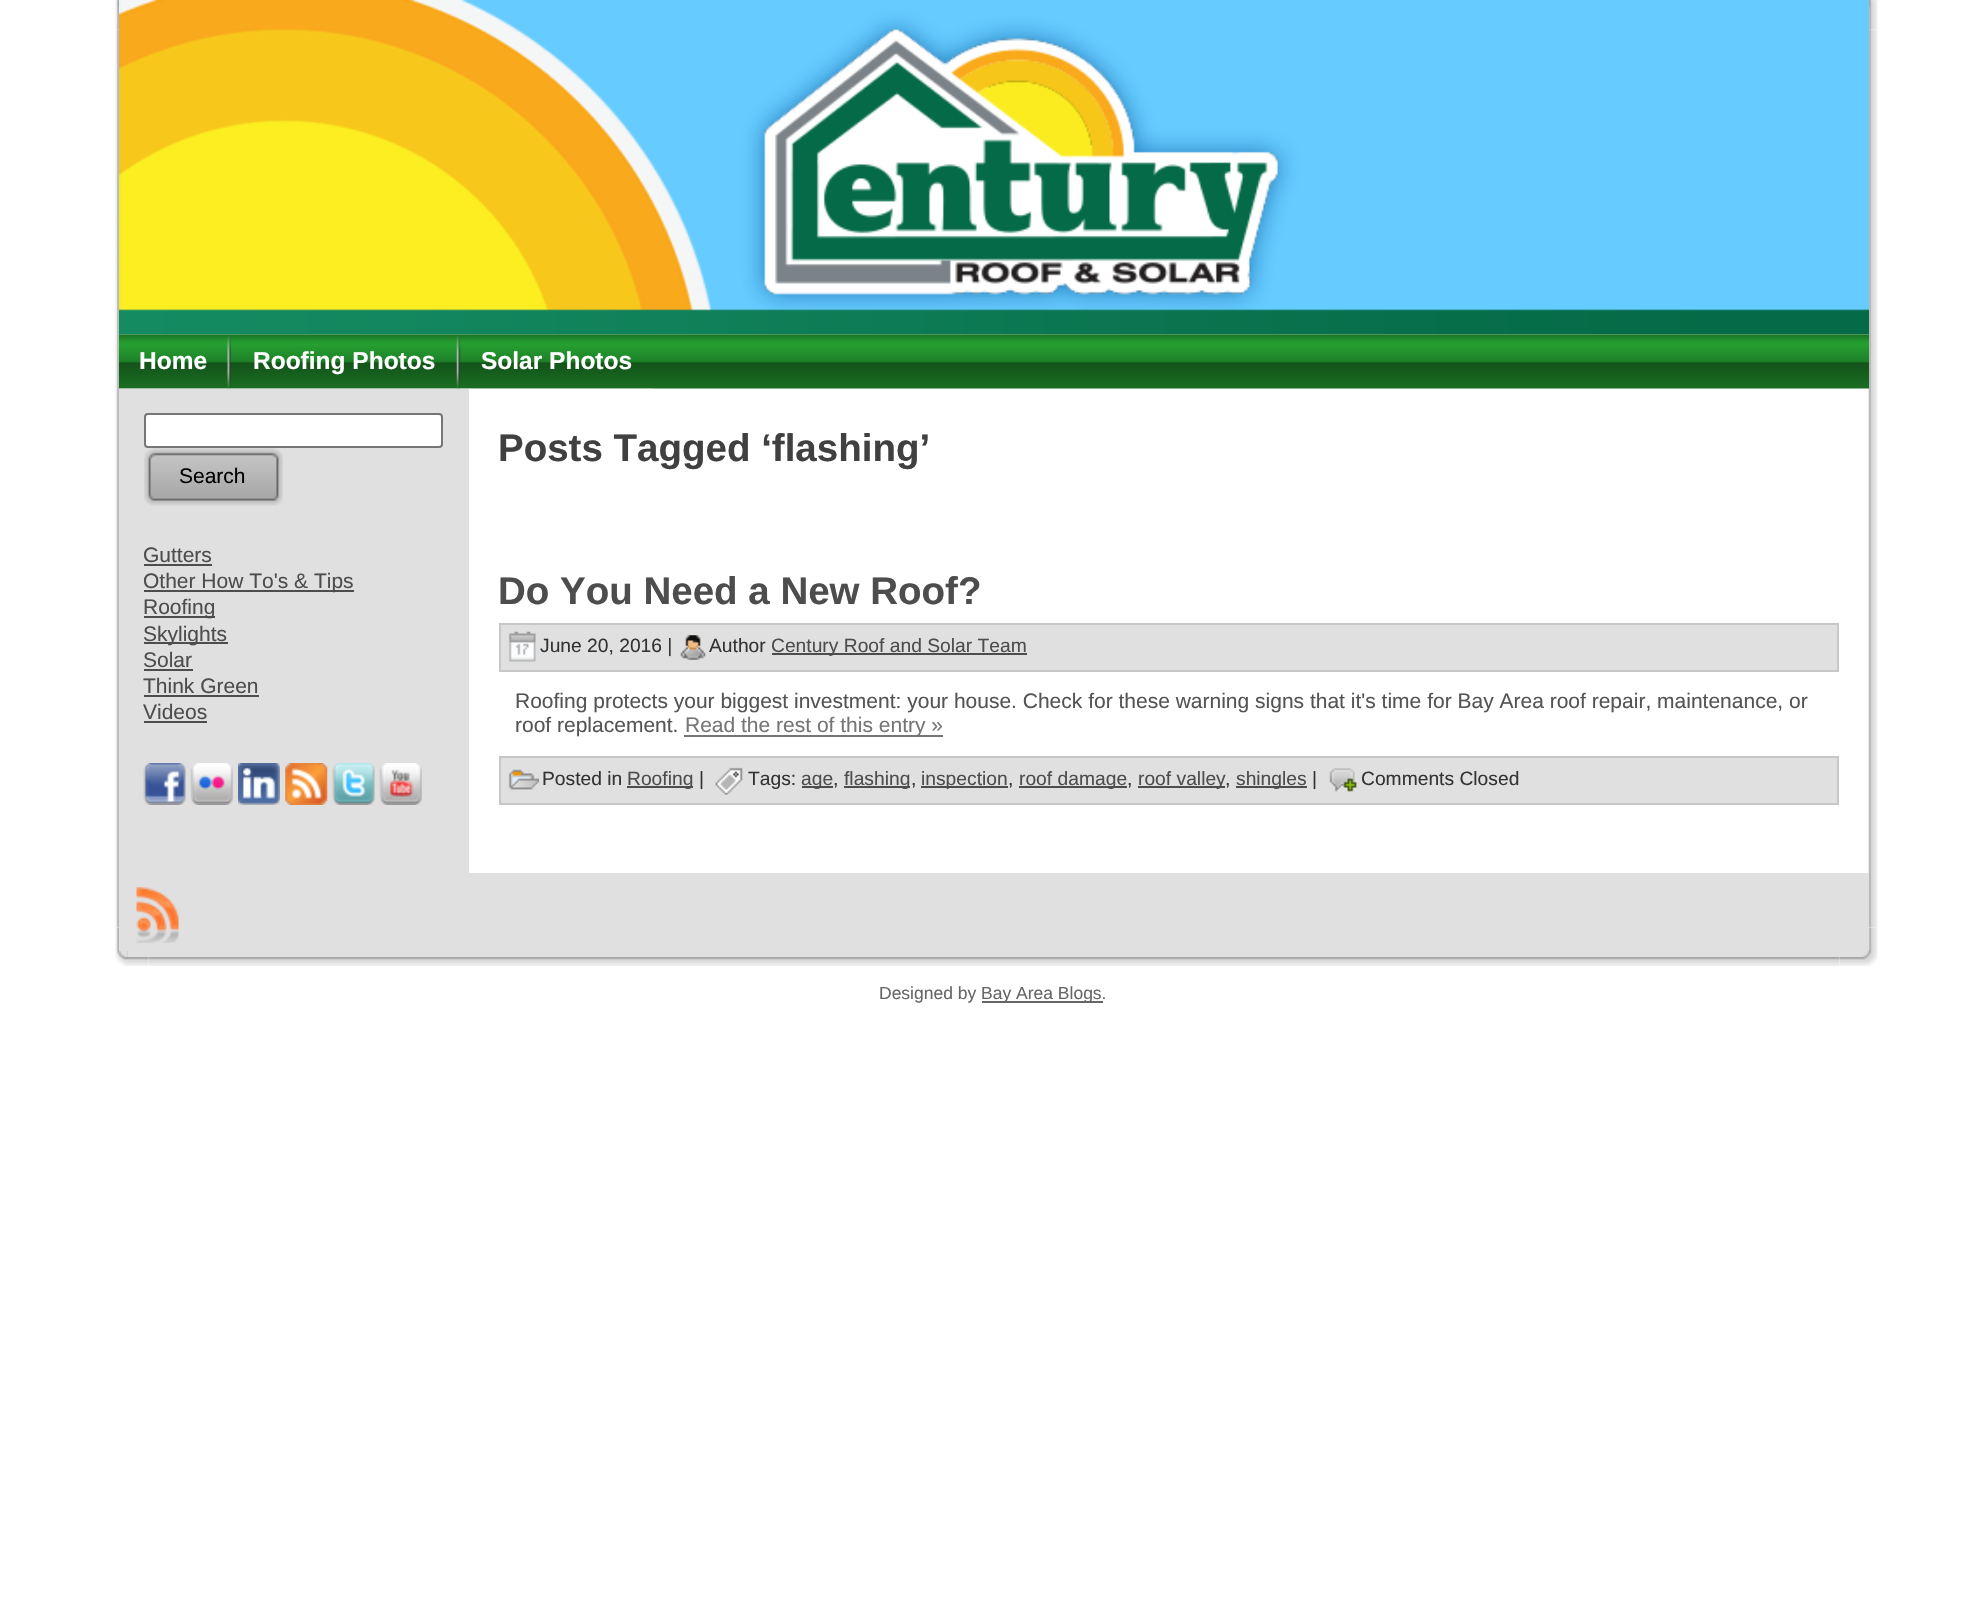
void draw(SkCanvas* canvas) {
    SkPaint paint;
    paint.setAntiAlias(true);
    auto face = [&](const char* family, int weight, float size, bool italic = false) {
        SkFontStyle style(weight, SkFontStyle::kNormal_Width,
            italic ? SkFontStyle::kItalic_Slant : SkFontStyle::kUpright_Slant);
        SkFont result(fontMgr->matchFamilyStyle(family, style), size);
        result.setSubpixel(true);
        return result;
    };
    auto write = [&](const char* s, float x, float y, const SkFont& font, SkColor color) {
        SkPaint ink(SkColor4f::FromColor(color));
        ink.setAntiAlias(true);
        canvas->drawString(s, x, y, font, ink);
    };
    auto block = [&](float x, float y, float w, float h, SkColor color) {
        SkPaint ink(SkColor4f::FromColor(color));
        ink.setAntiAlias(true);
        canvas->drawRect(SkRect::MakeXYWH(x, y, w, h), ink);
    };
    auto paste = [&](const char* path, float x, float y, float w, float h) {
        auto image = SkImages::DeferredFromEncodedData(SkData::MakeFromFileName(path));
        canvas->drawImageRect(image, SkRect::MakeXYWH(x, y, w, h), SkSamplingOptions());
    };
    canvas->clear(SK_ColorWHITE);
    paste("pic1.png", 115, 0, 4, 30);
    paste("pic2.png", 1869, 0, 9, 30);
    paste("pic29.png", 115, 927, 34, 39);
    paste("pic3.png", 115, 30, 5, 898);
    paste("pic31.png", 1839, 927, 39, 39);
    paste("pic28.png", 1868, 30, 10, 898);
    paste("pic4.png", 119, 0, 1750, 335);
    paste("pic5.png", 119, 334, 1750, 1);
    paste("pic6.png", 119, 334, 1750, 55);
    auto kFont1 = face("Liberation Sans", 700, 24.5f);
    write("Home", 139, 369, kFont1, SK_ColorWHITE);
    paste("pic7.png", 119, 388, 109, 1);
    paste("pic8.png", 227, 336, 4, 53);
    write("Roofing Photos", 253, 369, kFont1, SK_ColorWHITE);
    paste("pic9.png", 231, 388, 226, 1);
    paste("pic10.png", 456, 336, 5, 53);
    write("Solar Photos", 481, 369, kFont1, SK_ColorWHITE);
    paste("pic11.png", 460, 388, 193, 1);
    block(119, 389, 350, 484, SkColorSetRGB(224, 224, 224));
    paint.setColor(SK_ColorWHITE);
    canvas->drawRoundRect(SkRect::MakeXYWH(145, 414, 297, 33), 3, 3, paint);
    paint.setStyle(SkPaint::kStroke_Style);
    paint.setStrokeWidth(2);
    paint.setColor(SkColorSetRGB(118, 118, 118));
    canvas->drawRoundRect(SkRect::MakeXYWH(145, 414, 297, 33), 3, 3, paint);
    paste("pic12.png", 144, 448, 122, 58);
    paste("pic13.png", 266, 448, 17, 58);
    auto kFont2 = face("Liberation Sans", 400, 21);
    write("Search", 179, 483, kFont2, SK_ColorBLACK);
    write("Gutters", 143, 562, kFont2, SkColorSetRGB(77, 77, 77));
    block(144, 564, 68, 2, SkColorSetRGB(77, 77, 77));
    block(144, 590, 210, 2, SkColorSetRGB(77, 77, 77));
    write("Other How To's & Tips", 143, 588, kFont2, SkColorSetRGB(77, 77, 77));
    block(144, 616, 71, 2, SkColorSetRGB(77, 77, 77));
    write("Roofing", 143, 614, kFont2, SkColorSetRGB(77, 77, 77));
    block(144, 642, 84, 2, SkColorSetRGB(77, 77, 77));
    write("Skylights", 143, 641, kFont2, SkColorSetRGB(77, 77, 77));
    write("Solar", 143, 667, kFont2, SkColorSetRGB(77, 77, 77));
    block(144, 669, 49, 2, SkColorSetRGB(77, 77, 77));
    write("Think Green", 143, 693, kFont2, SkColorSetRGB(77, 77, 77));
    block(144, 695, 115, 2, SkColorSetRGB(77, 77, 77));
    write("Videos", 143, 719, kFont2, SkColorSetRGB(77, 77, 77));
    block(144, 721, 63, 2, SkColorSetRGB(77, 77, 77));
    paste("pic14.png", 143, 763, 43, 42);
    paste("pic15.png", 190, 763, 43, 42);
    paste("pic16.png", 238, 763, 42, 42);
    paste("pic17.png", 285, 763, 43, 42);
    paste("pic18.png", 332, 763, 43, 42);
    paste("pic19.png", 379, 763, 43, 42);
    auto kFont3 = face("Liberation Sans", 700, 38.5f);
    write("Posts Tagged ‘flashing’", 498, 461, kFont3, SkColorSetRGB(64, 64, 64));
    write("Do You Need a New Roof?", 498, 604, kFont3, SkColorSetRGB(77, 77, 77));
    paint.setStyle(SkPaint::kFill_Style);
    paint.setColor(SkColorSetRGB(224, 224, 224));
    canvas->drawRect(SkRect::MakeXYWH(500, 624, 1338, 47), paint);
    paint.setStyle(SkPaint::kStroke_Style);
    paint.setColor(SkColorSetRGB(199, 199, 199));
    canvas->drawRect(SkRect::MakeXYWH(500, 624, 1338, 47), paint);
    paste("pic20.png", 508, 631, 28, 31);
    auto kFont4 = face("Liberation Sans", 400, 19.25f);
    write("June 20, 2016 |", 540, 652, kFont4, SkColorSetRGB(51, 51, 51));
    paste("pic21.png", 680, 635, 26, 25);
    write("Author", 709, 652, kFont4, SkColorSetRGB(51, 51, 51));
    block(772, 653, 255, 2, SkColorSetRGB(77, 77, 77));
    write("Century Roof and Solar Team", 771, 652, kFont4, SkColorSetRGB(77, 77, 77));
    write("Roofing protects your biggest investment: your house. Check for these warning signs that it's time for Bay Area roof repair, maintenance, or", 515, 708, kFont2, SkColorSetRGB(84, 84, 84));
    write("roof replacement.", 515, 732, kFont2, SkColorSetRGB(84, 84, 84));
    block(684, 735, 259, 2, SkColorSetRGB(117, 117, 117));
    write("Read the rest of this entry »", 685, 732, kFont2, SkColorSetRGB(117, 117, 117));
    paint.setStyle(SkPaint::kFill_Style);
    paint.setColor(SkColorSetRGB(224, 224, 224));
    canvas->drawRect(SkRect::MakeXYWH(500, 757, 1338, 47), paint);
    paint.setStyle(SkPaint::kStroke_Style);
    paint.setColor(SkColorSetRGB(199, 199, 199));
    canvas->drawRect(SkRect::MakeXYWH(500, 757, 1338, 47), paint);
    paste("pic22.png", 508, 769, 31, 21);
    write("Posted in", 542, 785, kFont4, SkColorSetRGB(51, 51, 51));
    block(627, 786, 66, 2, SkColorSetRGB(77, 77, 77));
    write("Roofing", 627, 785, kFont4, SkColorSetRGB(77, 77, 77));
    write("|", 699, 785, kFont4, SkColorSetRGB(51, 51, 51));
    paste("pic23.png", 715, 767, 28, 28);
    write("Tags:", 748, 785, kFont4, SkColorSetRGB(51, 51, 51));
    block(802, 786, 31, 2, SkColorSetRGB(77, 77, 77));
    write("age", 801, 785, kFont4, SkColorSetRGB(77, 77, 77));
    write(",", 833, 785, kFont4, SkColorSetRGB(51, 51, 51));
    block(844, 786, 66, 2, SkColorSetRGB(77, 77, 77));
    write("flashing", 844, 785, kFont4, SkColorSetRGB(77, 77, 77));
    write(",", 911, 785, kFont4, SkColorSetRGB(51, 51, 51));
    block(921, 786, 87, 2, SkColorSetRGB(77, 77, 77));
    write("inspection", 921, 785, kFont4, SkColorSetRGB(77, 77, 77));
    write(",", 1008, 785, kFont4, SkColorSetRGB(51, 51, 51));
    block(1019, 786, 108, 2, SkColorSetRGB(77, 77, 77));
    write("roof damage", 1019, 785, kFont4, SkColorSetRGB(77, 77, 77));
    write(",", 1127, 785, kFont4, SkColorSetRGB(51, 51, 51));
    block(1138, 786, 87, 2, SkColorSetRGB(77, 77, 77));
    write("roof valley", 1138, 785, kFont4, SkColorSetRGB(77, 77, 77));
    write(",", 1225, 785, kFont4, SkColorSetRGB(51, 51, 51));
    block(1236, 786, 71, 2, SkColorSetRGB(77, 77, 77));
    write("shingles", 1236, 785, kFont4, SkColorSetRGB(77, 77, 77));
    write("|", 1312, 785, kFont4, SkColorSetRGB(51, 51, 51));
    paste("pic24.png", 1329, 768, 28, 24);
    write("Comments Closed", 1361, 785, kFont4, SkColorSetRGB(51, 51, 51));
    block(119, 873, 1750, 76, SkColorSetRGB(224, 224, 224));
    paste("pic25.png", 136, 887, 43, 56);
    paste("pic26.png", 119, 949, 9, 8);
    block(128, 949, 1733, 8, SkColorSetRGB(224, 224, 224));
    paste("pic27.png", 1861, 949, 8, 8);
    paste("pic30.png", 149, 957, 1690, 9);
    auto kFont5 = face("Liberation Sans", 400, 17.5f);
    write("Designed by", 879, 999, kFont5, SkColorSetRGB(102, 102, 102));
    block(982, 1001, 121, 2, SkColorSetRGB(102, 102, 102));
    write("Bay Area Blogs.", 981, 999, kFont5, SkColorSetRGB(102, 102, 102));
}
